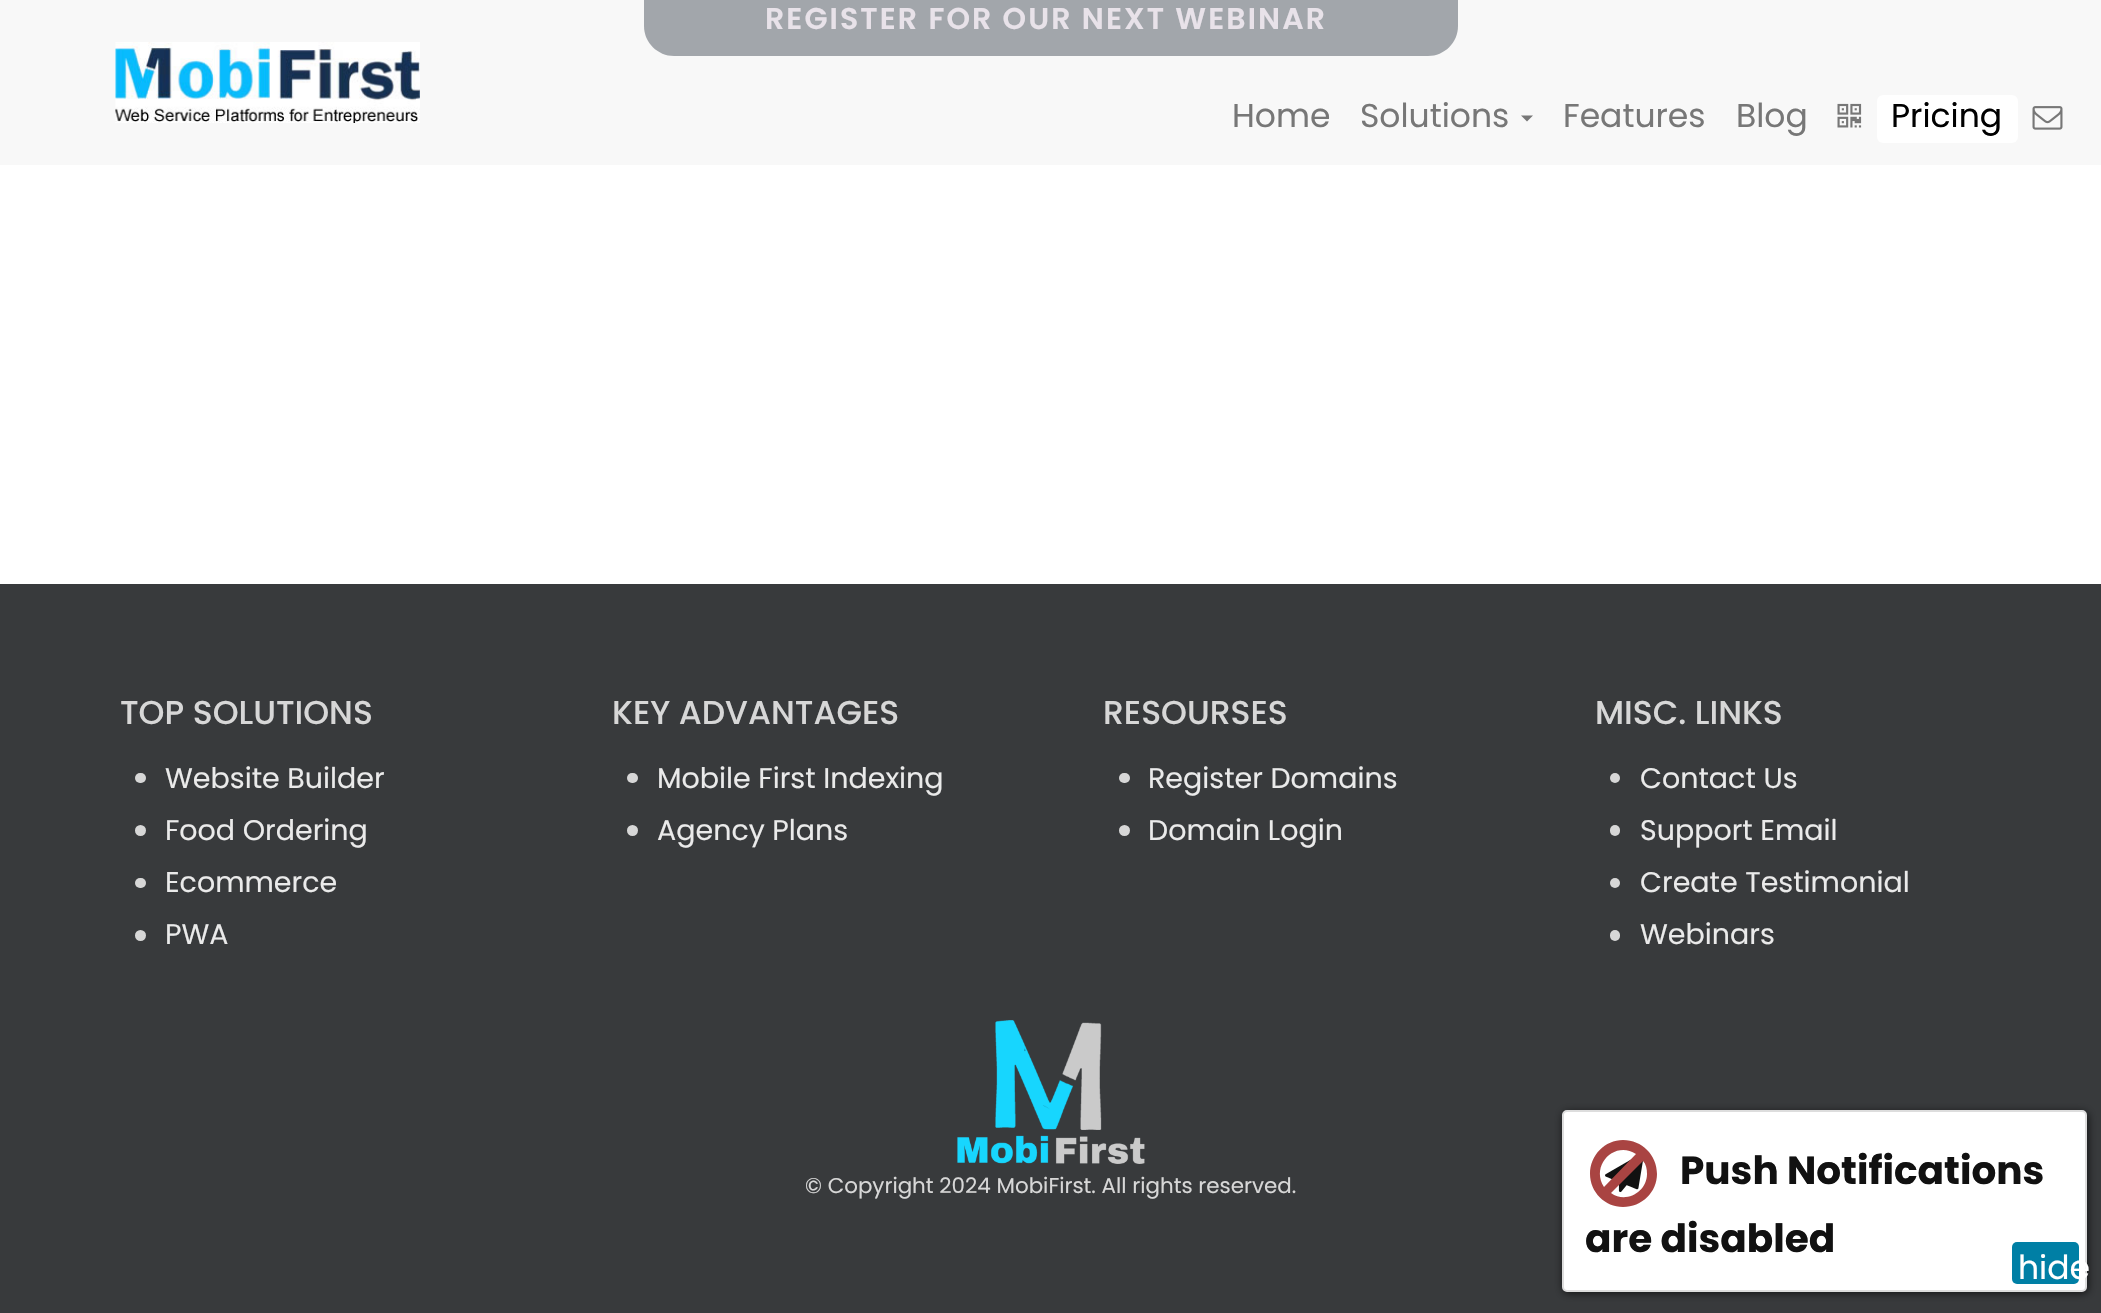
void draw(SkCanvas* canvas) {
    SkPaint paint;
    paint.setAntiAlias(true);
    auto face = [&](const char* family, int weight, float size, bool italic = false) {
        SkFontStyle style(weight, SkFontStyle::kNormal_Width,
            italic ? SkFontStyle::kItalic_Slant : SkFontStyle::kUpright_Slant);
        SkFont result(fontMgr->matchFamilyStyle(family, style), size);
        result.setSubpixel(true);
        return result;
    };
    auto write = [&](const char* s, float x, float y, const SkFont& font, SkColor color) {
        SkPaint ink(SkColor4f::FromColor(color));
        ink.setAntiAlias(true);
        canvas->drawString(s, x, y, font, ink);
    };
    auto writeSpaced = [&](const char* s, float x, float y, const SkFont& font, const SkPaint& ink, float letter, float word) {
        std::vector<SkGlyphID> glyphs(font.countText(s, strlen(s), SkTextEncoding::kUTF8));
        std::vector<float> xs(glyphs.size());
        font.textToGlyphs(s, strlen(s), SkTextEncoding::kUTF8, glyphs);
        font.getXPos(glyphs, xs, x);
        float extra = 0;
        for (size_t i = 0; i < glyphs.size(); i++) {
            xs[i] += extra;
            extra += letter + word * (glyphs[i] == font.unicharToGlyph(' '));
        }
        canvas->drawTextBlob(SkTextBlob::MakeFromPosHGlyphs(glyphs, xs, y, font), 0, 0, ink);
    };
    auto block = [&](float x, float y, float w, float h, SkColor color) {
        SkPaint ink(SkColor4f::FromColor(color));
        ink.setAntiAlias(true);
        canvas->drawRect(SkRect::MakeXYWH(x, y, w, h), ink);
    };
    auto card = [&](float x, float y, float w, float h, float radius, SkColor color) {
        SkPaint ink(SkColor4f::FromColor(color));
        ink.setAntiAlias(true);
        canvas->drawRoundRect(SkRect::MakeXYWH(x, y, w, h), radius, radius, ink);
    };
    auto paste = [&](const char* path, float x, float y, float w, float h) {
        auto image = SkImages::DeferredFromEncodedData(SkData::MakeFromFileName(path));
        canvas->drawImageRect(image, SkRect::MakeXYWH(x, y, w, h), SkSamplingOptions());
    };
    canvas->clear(SK_ColorWHITE);
    block(0, 0, 2101, 165, SkColorSetRGB(248, 248, 248));
    paint.setColor(SkColorSetRGB(162, 166, 171));
    canvas->drawPath(SkPathBuilder().moveTo(644, 0).lineTo(1458, 0).lineTo(1458, 26).cubicTo(1458, 42.5f, 1444.5f, 56, 1428, 56).lineTo(674, 56).cubicTo(657.5f, 56, 644, 42.5f, 644, 26).close().detach(), paint);
    auto kFont1 = face("Poppins", 600, 30);
    paint.setColor(SkColorSetRGB(232, 226, 233));
    writeSpaced("REGISTER FOR OUR NEXT WEBINAR", 765, 29, kFont1, paint, 2.1f, 0);
    paste("pic1.png", 115, 42, 305, 81);
    auto kFont2 = face("Poppins", 400, 33);
    write("Home", 1232, 127, kFont2, SkColorSetRGB(119, 119, 119));
    write("Solutions", 1360, 127, kFont2, SkColorSetRGB(119, 119, 119));
    paint.setColor(SkColorSetRGB(119, 119, 119));
    canvas->drawPath(SkPathBuilder().moveTo(1521, 115.5f).lineTo(1533, 115.5f).lineTo(1527, 121.5f).close().detach(), paint);
    write("Features", 1563, 127, kFont2, SkColorSetRGB(119, 119, 119));
    write("Blog", 1736, 127, kFont2, SkColorSetRGB(119, 119, 119));
    paste("pic2.png", 1837, 103, 25, 25);
    card(1877, 95, 141, 48, 6, SK_ColorWHITE);
    write("Pricing", 1891, 127, kFont2, SK_ColorBLACK);
    paste("pic3.png", 2032, 106, 31, 24);
    block(0, 584, 2101, 729, SkColorSetRGB(56, 58, 60));
    auto kFont3 = face("Poppins", 500, 33);
    write("TOP SOLUTIONS", 120, 724, kFont3, SkColorSetRGB(215, 215, 215));
    card(135, 773, 11, 10, 5, SkColorSetRGB(215, 215, 215));
    auto kFont4 = face("Poppins", 400, 28.5f);
    write("Website Builder", 165, 788, kFont4, SkColorSetRGB(234, 234, 234));
    paint.setColor(SkColorSetRGB(215, 215, 215));
    canvas->drawCircle(140.5f, 830.5f, 5.5f, paint);
    write("Food Ordering", 165, 840, kFont4, SkColorSetRGB(234, 234, 234));
    card(135, 878, 11, 10, 5, SkColorSetRGB(215, 215, 215));
    write("Ecommerce", 165, 892, kFont4, SkColorSetRGB(234, 234, 234));
    canvas->drawCircle(140.5f, 935.5f, 5.5f, paint);
    write("PWA", 165, 944, kFont4, SkColorSetRGB(234, 234, 234));
    write("KEY ADVANTAGES", 612, 724, kFont3, SkColorSetRGB(215, 215, 215));
    card(627, 773, 11, 10, 5, SkColorSetRGB(215, 215, 215));
    write("Mobile First Indexing", 657, 788, kFont4, SkColorSetRGB(234, 234, 234));
    canvas->drawCircle(632.5f, 830.5f, 5.5f, paint);
    write("Agency Plans", 657, 840, kFont4, SkColorSetRGB(234, 234, 234));
    write("RESOURSES", 1103, 724, kFont3, SkColorSetRGB(215, 215, 215));
    card(1119, 773, 11, 10, 5, SkColorSetRGB(215, 215, 215));
    write("Register Domains", 1148, 788, kFont4, SkColorSetRGB(234, 234, 234));
    canvas->drawCircle(1124.5f, 830.5f, 5.5f, paint);
    write("Domain Login", 1148, 840, kFont4, SkColorSetRGB(234, 234, 234));
    write("MISC. LINKS", 1595, 724, kFont3, SkColorSetRGB(215, 215, 215));
    canvas->drawCircle(1615, 778, 5, paint);
    write("Contact Us", 1640, 788, kFont4, SkColorSetRGB(234, 234, 234));
    card(1610, 825, 10, 11, 5, SkColorSetRGB(215, 215, 215));
    write("Support Email", 1640, 840, kFont4, SkColorSetRGB(234, 234, 234));
    canvas->drawCircle(1615, 883, 5, paint);
    write("Create Testimonial", 1640, 892, kFont4, SkColorSetRGB(234, 234, 234));
    card(1610, 930, 10, 11, 5, SkColorSetRGB(215, 215, 215));
    write("Webinars", 1640, 944, kFont4, SkColorSetRGB(234, 234, 234));
    paste("pic4.png", 957, 1020, 188, 144);
    auto kFont5 = face("Poppins", 400, 21.4f);
    write("© Copyright 2024 MobiFirst. All rights reserved.", 805, 1193, kFont5, SkColorSetRGB(215, 215, 215));
    paint.setColor(SkColorSetARGB(179, 0, 0, 0));
    paint.setMaskFilter(SkMaskFilter::MakeBlur(kNormal_SkBlurStyle, 4));
    canvas->drawRoundRect(SkRect::MakeXYWH(1563, 1112, 525, 181), 5, 5, paint);
    paint.setMaskFilter(nullptr);
    paint.setColor(SK_ColorWHITE);
    canvas->drawRoundRect(SkRect::MakeXYWH(1563, 1111, 523, 180), 4, 4, paint);
    paint.setStyle(SkPaint::kStroke_Style);
    paint.setStrokeWidth(2);
    paint.setColor(SkColorSetRGB(221, 221, 221));
    canvas->drawRoundRect(SkRect::MakeXYWH(1563, 1111, 523, 180), 4, 4, paint);
    paste("pic5.png", 1605, 1158, 38, 35);
    paint.setStyle(SkPaint::kFill_Style);
    paint.setColor(SkColorSetRGB(169, 68, 66));
    canvas->drawPath(SkPathBuilder().moveTo(1647, 1174).cubicTo(1647, 1192, 1626, 1204, 1611, 1193).lineTo(1643, 1161).cubicTo(1646, 1164, 1647, 1169, 1647, 1174).close().moveTo(1604, 1187).cubicTo(1590, 1165, 1615, 1140, 1636, 1154).close().moveTo(1657, 1174).cubicTo(1657, 1155, 1642, 1140, 1623, 1140).cubicTo(1605, 1140, 1590, 1155, 1590, 1174).cubicTo(1590, 1192, 1605, 1207, 1623, 1207).cubicTo(1642, 1207, 1657, 1192, 1657, 1174).close().detach(), paint);
    auto kFont6 = face("Poppins", 700, 39);
    write("Push Notifications", 1680, 1184, kFont6, SkColorSetRGB(17, 17, 17));
    write("are disabled", 1585, 1252, kFont6, SkColorSetRGB(17, 17, 17));
    card(2012, 1242, 67, 42, 5, SkColorSetRGB(0, 127, 165));
    write("hide", 2018, 1279, kFont2, SK_ColorWHITE);
}
